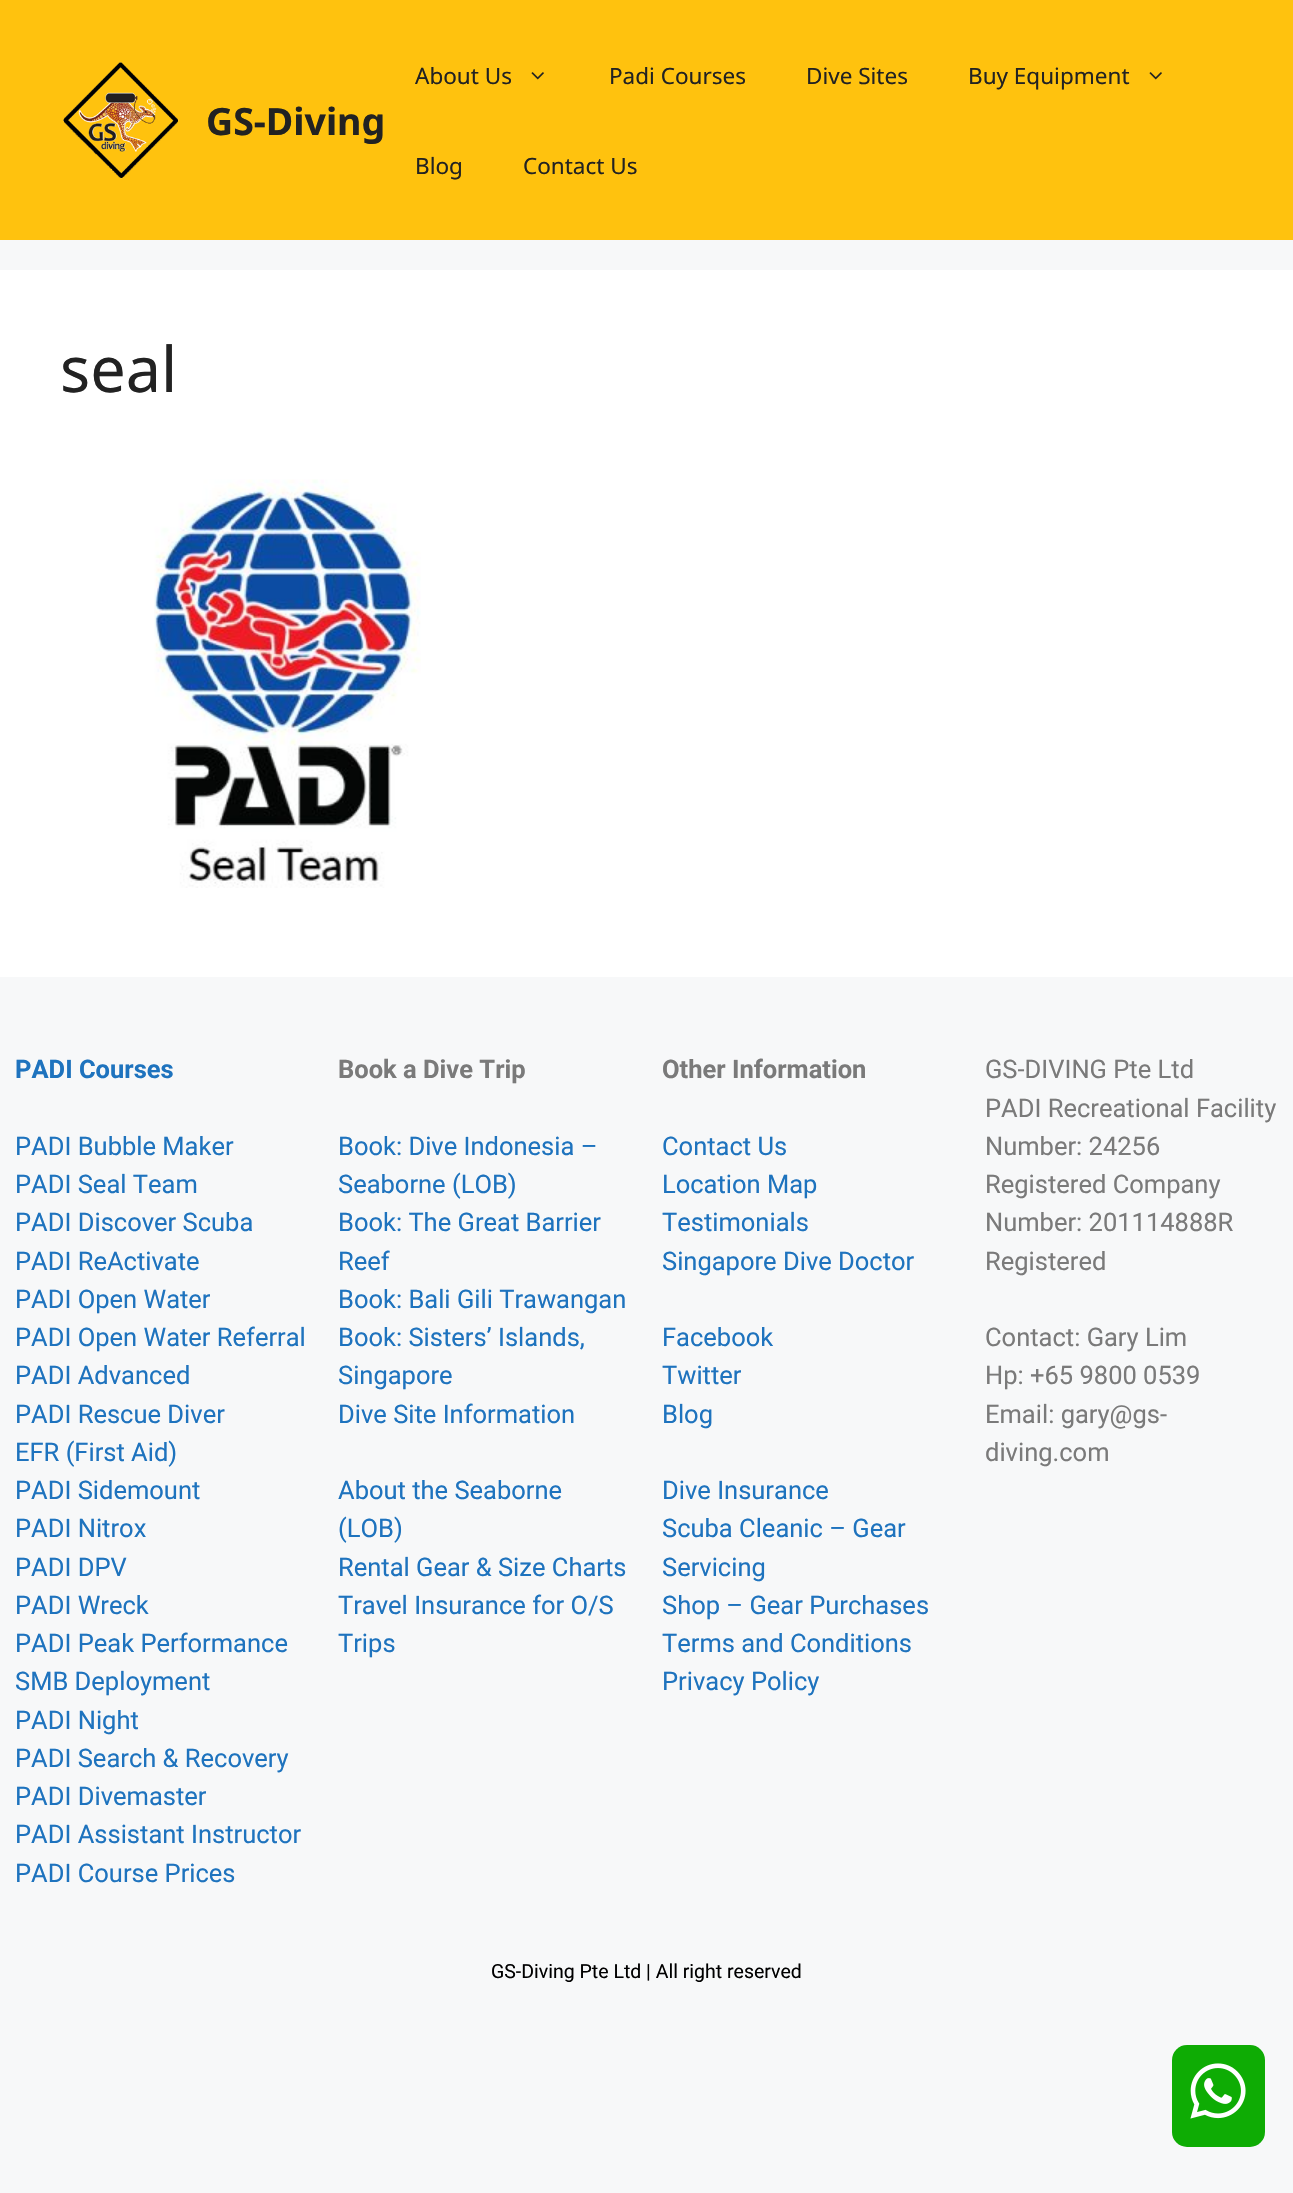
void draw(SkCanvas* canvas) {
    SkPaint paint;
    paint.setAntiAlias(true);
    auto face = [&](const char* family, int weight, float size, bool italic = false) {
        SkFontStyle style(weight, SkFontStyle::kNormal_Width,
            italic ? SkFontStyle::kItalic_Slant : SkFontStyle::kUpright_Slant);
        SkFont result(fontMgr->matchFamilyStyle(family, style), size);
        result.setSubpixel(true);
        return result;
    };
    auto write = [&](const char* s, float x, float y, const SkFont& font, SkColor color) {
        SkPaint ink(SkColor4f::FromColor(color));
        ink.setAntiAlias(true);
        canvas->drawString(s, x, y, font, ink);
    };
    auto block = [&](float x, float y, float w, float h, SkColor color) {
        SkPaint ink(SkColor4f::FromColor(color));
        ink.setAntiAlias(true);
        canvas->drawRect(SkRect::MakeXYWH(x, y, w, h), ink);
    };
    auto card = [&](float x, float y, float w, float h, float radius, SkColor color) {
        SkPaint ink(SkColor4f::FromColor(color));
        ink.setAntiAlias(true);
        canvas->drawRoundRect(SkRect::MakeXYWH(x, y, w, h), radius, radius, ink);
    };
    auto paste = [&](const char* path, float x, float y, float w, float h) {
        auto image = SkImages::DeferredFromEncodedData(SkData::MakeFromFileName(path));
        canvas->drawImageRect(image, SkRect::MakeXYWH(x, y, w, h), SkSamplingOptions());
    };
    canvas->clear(SkColorSetRGB(247, 248, 249));
    block(0, 0, 1293, 240, SkColorSetRGB(255, 194, 14));
    paste("pic1.png", 63, 62, 116, 117);
    auto kFont1 = face("Noto Sans", 700, 37.5f);
    write("GS-Diving", 206, 135, kFont1, SkColorSetRGB(34, 34, 34));
    auto kFont2 = face("Noto Sans", 400, 22.5f);
    write("About Us", 415, 84, kFont2, SkColorSetRGB(34, 34, 34));
    paste("pic2.png", 531, 72, 13, 8);
    write("Padi Courses", 609, 84, kFont2, SkColorSetRGB(34, 34, 34));
    write("Dive Sites", 806, 84, kFont2, SkColorSetRGB(34, 34, 34));
    write("Buy Equipment", 968, 84, kFont2, SkColorSetRGB(34, 34, 34));
    paste("pic2.png", 1149, 72, 13, 8);
    write("Blog", 415, 174, kFont2, SkColorSetRGB(34, 34, 34));
    write("Contact Us", 523, 174, kFont2, SkColorSetRGB(34, 34, 34));
    block(0, 270, 1293, 707, SK_ColorWHITE);
    auto kFont3 = face("Noto Sans", 400, 63);
    write("seal", 60, 392, kFont3, SkColorSetRGB(34, 34, 34));
    paste("pic3.png", 154, 479, 267, 409);
    auto kFont4 = face("Roboto", 700, 25.5f);
    write("PADI Courses", 15, 1078, kFont4, SkColorSetRGB(30, 115, 190));
    auto kFont5 = face("Roboto", 400, 25.5f);
    write("PADI Bubble Maker", 15, 1155, kFont5, SkColorSetRGB(30, 115, 190));
    write("PADI Seal Team", 15, 1193, kFont5, SkColorSetRGB(30, 115, 190));
    write("PADI Discover Scuba", 15, 1231, kFont5, SkColorSetRGB(30, 115, 190));
    write("PADI ReActivate", 15, 1270, kFont5, SkColorSetRGB(30, 115, 190));
    write("PADI Open Water", 15, 1308, kFont5, SkColorSetRGB(30, 115, 190));
    write("PADI Open Water Referral", 15, 1346, kFont5, SkColorSetRGB(30, 115, 190));
    write("PADI Advanced", 15, 1384, kFont5, SkColorSetRGB(30, 115, 190));
    write("PADI Rescue Diver", 15, 1423, kFont5, SkColorSetRGB(30, 115, 190));
    write("EFR (First Aid)", 15, 1461, kFont5, SkColorSetRGB(30, 115, 190));
    write("PADI Sidemount", 15, 1499, kFont5, SkColorSetRGB(30, 115, 190));
    write("PADI Nitrox", 15, 1537, kFont5, SkColorSetRGB(30, 115, 190));
    write("PADI DPV", 15, 1576, kFont5, SkColorSetRGB(30, 115, 190));
    write("PADI Wreck", 15, 1614, kFont5, SkColorSetRGB(30, 115, 190));
    write("PADI Peak Performance", 15, 1652, kFont5, SkColorSetRGB(30, 115, 190));
    write("SMB Deployment", 15, 1690, kFont5, SkColorSetRGB(30, 115, 190));
    write("PADI Night", 15, 1729, kFont5, SkColorSetRGB(30, 115, 190));
    write("PADI Search & Recovery", 15, 1767, kFont5, SkColorSetRGB(30, 115, 190));
    write("PADI Divemaster", 15, 1805, kFont5, SkColorSetRGB(30, 115, 190));
    write("PADI Assistant Instructor", 15, 1843, kFont5, SkColorSetRGB(30, 115, 190));
    write("PADI Course Prices", 15, 1882, kFont5, SkColorSetRGB(30, 115, 190));
    write("Book a Dive Trip", 338, 1078, kFont4, SkColorSetRGB(122, 122, 122));
    write("Book: Dive Indonesia –", 338, 1155, kFont5, SkColorSetRGB(30, 115, 190));
    write("Seaborne (LOB)", 338, 1193, kFont5, SkColorSetRGB(30, 115, 190));
    write("Book: The Great Barrier", 338, 1231, kFont5, SkColorSetRGB(30, 115, 190));
    write("Reef", 338, 1270, kFont5, SkColorSetRGB(30, 115, 190));
    write("Book: Bali Gili Trawangan", 338, 1308, kFont5, SkColorSetRGB(30, 115, 190));
    write("Book: Sisters’ Islands,", 338, 1346, kFont5, SkColorSetRGB(30, 115, 190));
    write("Singapore", 338, 1384, kFont5, SkColorSetRGB(30, 115, 190));
    write("Dive Site Information", 338, 1423, kFont5, SkColorSetRGB(30, 115, 190));
    write("About the Seaborne", 338, 1499, kFont5, SkColorSetRGB(30, 115, 190));
    write("(LOB)", 338, 1537, kFont5, SkColorSetRGB(30, 115, 190));
    write("Rental Gear & Size Charts", 338, 1576, kFont5, SkColorSetRGB(30, 115, 190));
    write("Travel Insurance for O/S", 338, 1614, kFont5, SkColorSetRGB(30, 115, 190));
    write("Trips", 338, 1652, kFont5, SkColorSetRGB(30, 115, 190));
    write("Other Information", 662, 1078, kFont4, SkColorSetRGB(122, 122, 122));
    write("Contact Us", 662, 1155, kFont5, SkColorSetRGB(30, 115, 190));
    write("Location Map", 662, 1193, kFont5, SkColorSetRGB(30, 115, 190));
    write("Testimonials", 662, 1231, kFont5, SkColorSetRGB(30, 115, 190));
    write("Singapore Dive Doctor", 662, 1270, kFont5, SkColorSetRGB(30, 115, 190));
    write("Facebook", 662, 1346, kFont5, SkColorSetRGB(30, 115, 190));
    write("Twitter", 662, 1384, kFont5, SkColorSetRGB(30, 115, 190));
    write("Blog", 662, 1423, kFont5, SkColorSetRGB(30, 115, 190));
    write("Dive Insurance", 662, 1499, kFont5, SkColorSetRGB(30, 115, 190));
    write("Scuba Cleanic – Gear", 662, 1537, kFont5, SkColorSetRGB(30, 115, 190));
    write("Servicing", 662, 1576, kFont5, SkColorSetRGB(30, 115, 190));
    write("Shop – Gear Purchases", 662, 1614, kFont5, SkColorSetRGB(30, 115, 190));
    write("Terms and Conditions", 662, 1652, kFont5, SkColorSetRGB(30, 115, 190));
    write("Privacy Policy", 662, 1690, kFont5, SkColorSetRGB(30, 115, 190));
    write("GS-DIVING Pte Ltd", 985, 1078, kFont5, SkColorSetRGB(122, 122, 122));
    write("PADI Recreational Facility", 985, 1117, kFont5, SkColorSetRGB(122, 122, 122));
    write("Number: 24256", 985, 1155, kFont5, SkColorSetRGB(122, 122, 122));
    write("Registered Company", 985, 1193, kFont5, SkColorSetRGB(122, 122, 122));
    write("Number: 201114888R", 985, 1231, kFont5, SkColorSetRGB(122, 122, 122));
    write("Registered", 985, 1270, kFont5, SkColorSetRGB(122, 122, 122));
    write("Contact: Gary Lim", 985, 1346, kFont5, SkColorSetRGB(122, 122, 122));
    write("Hp: +65 9800 0539", 985, 1384, kFont5, SkColorSetRGB(122, 122, 122));
    write("Email: gary@gs-", 985, 1423, kFont5, SkColorSetRGB(122, 122, 122));
    write("diving.com", 985, 1461, kFont5, SkColorSetRGB(122, 122, 122));
    auto kFont6 = face("Roboto", 400, 19.5f);
    write("GS-Diving Pte Ltd | All right reserved", 491, 1978, kFont6, SK_ColorBLACK);
    card(1172, 2045, 93, 102, 15, SkColorSetRGB(14, 172, 4));
    paste("pic4.png", 1190, 2063, 56, 56);
}
